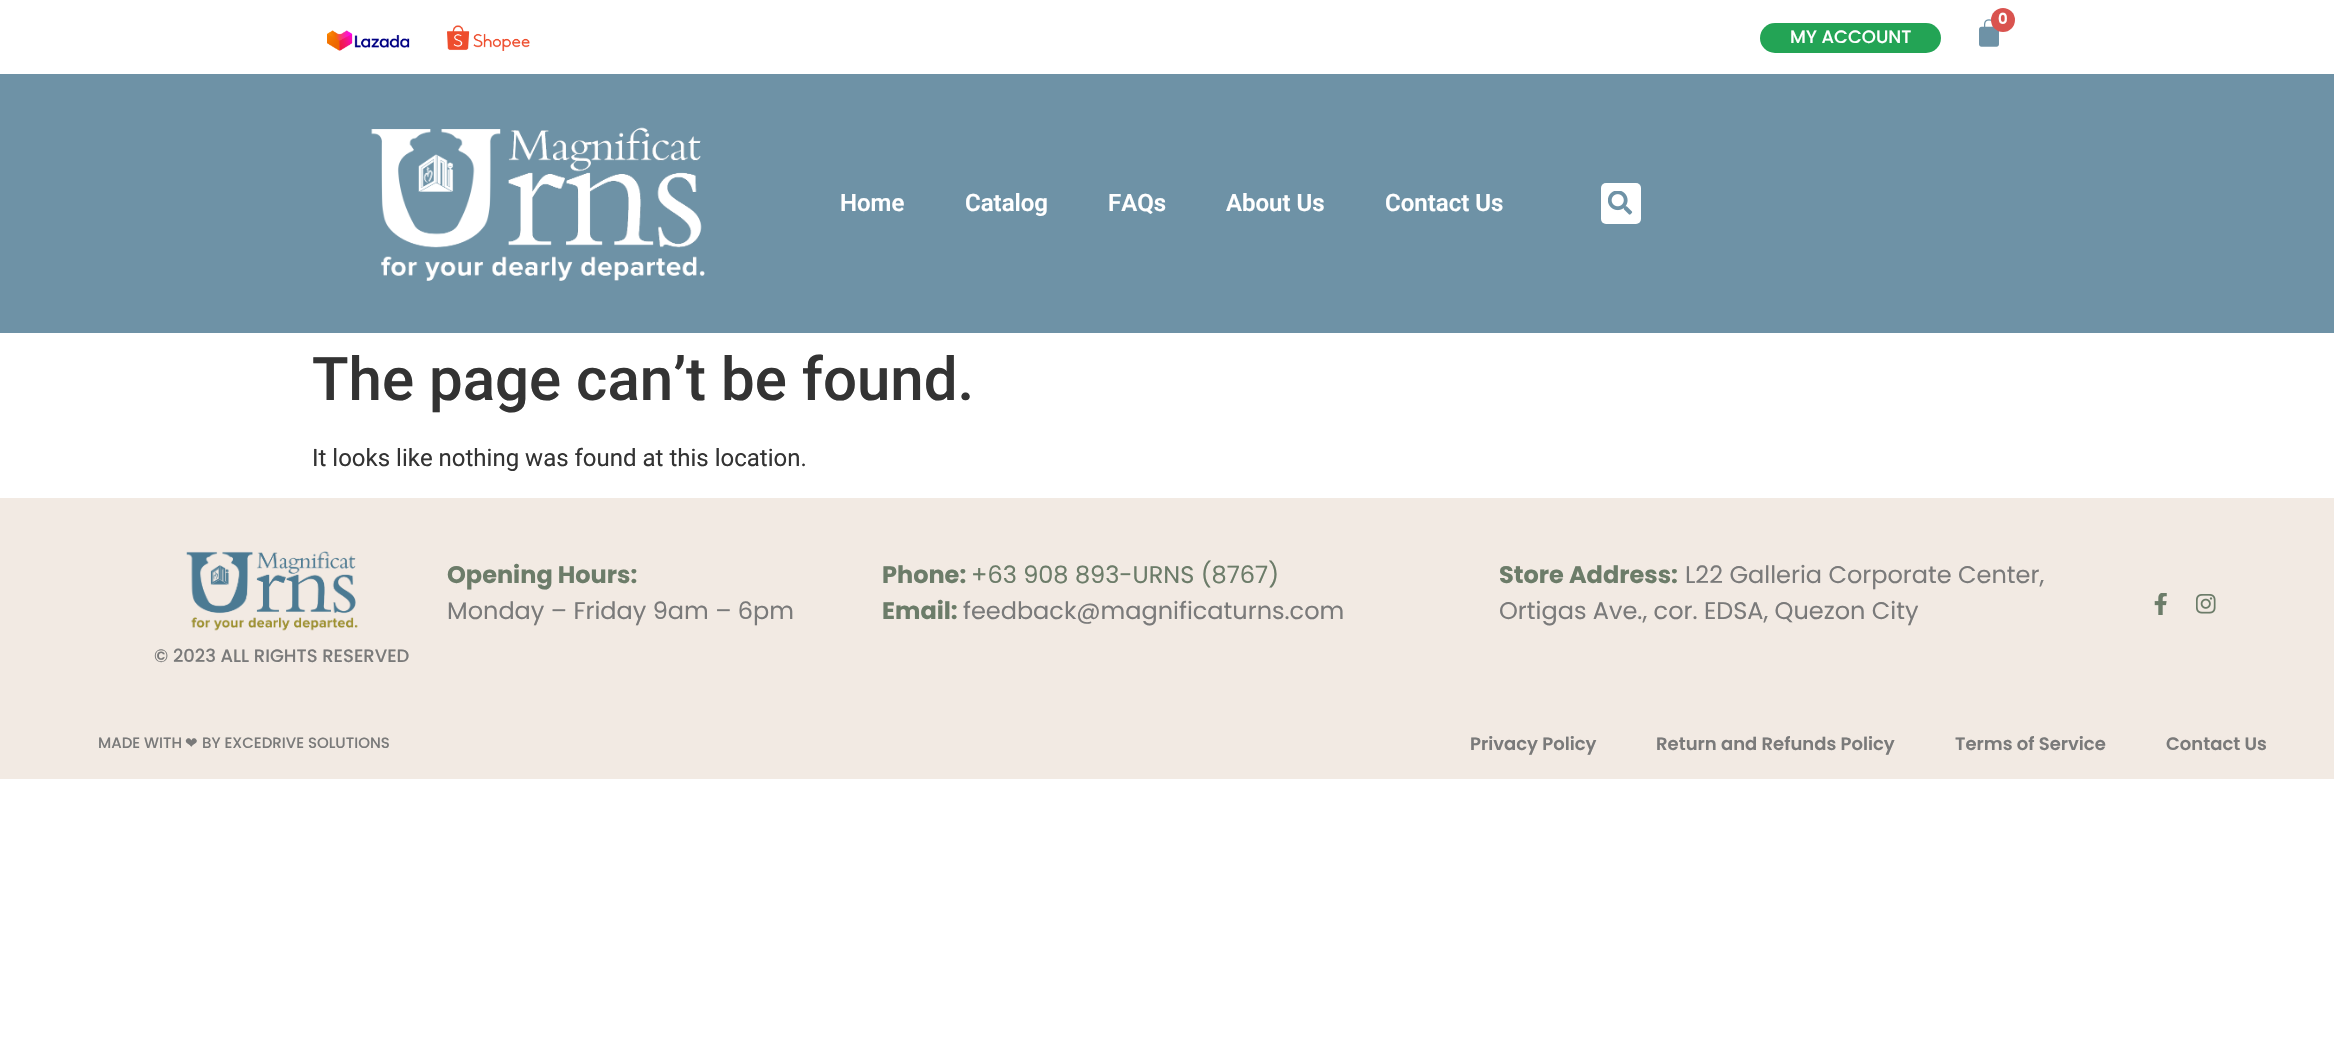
void draw(SkCanvas* canvas) {
    SkPaint paint;
    paint.setAntiAlias(true);
    auto face = [&](const char* family, int weight, float size, bool italic = false) {
        SkFontStyle style(weight, SkFontStyle::kNormal_Width,
            italic ? SkFontStyle::kItalic_Slant : SkFontStyle::kUpright_Slant);
        SkFont result(fontMgr->matchFamilyStyle(family, style), size);
        result.setSubpixel(true);
        return result;
    };
    auto write = [&](const char* s, float x, float y, const SkFont& font, SkColor color) {
        SkPaint ink(SkColor4f::FromColor(color));
        ink.setAntiAlias(true);
        canvas->drawString(s, x, y, font, ink);
    };
    auto block = [&](float x, float y, float w, float h, SkColor color) {
        SkPaint ink(SkColor4f::FromColor(color));
        ink.setAntiAlias(true);
        canvas->drawRect(SkRect::MakeXYWH(x, y, w, h), ink);
    };
    auto card = [&](float x, float y, float w, float h, float radius, SkColor color) {
        SkPaint ink(SkColor4f::FromColor(color));
        ink.setAntiAlias(true);
        canvas->drawRoundRect(SkRect::MakeXYWH(x, y, w, h), radius, radius, ink);
    };
    auto paste = [&](const char* path, float x, float y, float w, float h) {
        auto image = SkImages::DeferredFromEncodedData(SkData::MakeFromFileName(path));
        canvas->drawImageRect(image, SkRect::MakeXYWH(x, y, w, h), SkSamplingOptions());
    };
    canvas->clear(SK_ColorWHITE);
    paste("pic1.png", 327, 30, 83, 21);
    paste("pic2.png", 447, 25, 83, 26);
    paste("pic3.png", 1979, 19, 20, 28);
    paint.setColor(SkColorSetRGB(217, 83, 79));
    canvas->drawCircle(2003, 20, 12, paint);
    auto kFont1 = face("Poppins", 600, 15);
    write("0", 1998, 24, kFont1, SK_ColorWHITE);
    card(1760, 23, 181, 30, 15, SkColorSetRGB(35, 164, 85));
    auto kFont2 = face("Poppins", 500, 18);
    write("MY ACCOUNT", 1790, 43, kFont2, SK_ColorWHITE);
    block(0, 74, 2334, 259, SkColorSetRGB(110, 146, 166));
    paste("pic4.png", 371, 127, 334, 154);
    auto kFont3 = face("Roboto", 600, 24);
    write("Home", 840, 211, kFont3, SK_ColorWHITE);
    write("Catalog", 965, 211, kFont3, SK_ColorWHITE);
    write("FAQs", 1108, 211, kFont3, SK_ColorWHITE);
    write("About Us", 1226, 211, kFont3, SK_ColorWHITE);
    write("Contact Us", 1385, 211, kFont3, SK_ColorWHITE);
    card(1601, 183, 40, 41, 5, SK_ColorWHITE);
    paste("pic5.png", 1608, 191, 25, 24);
    auto kFont4 = face("Roboto", 500, 60);
    write("The page can’t be found.", 312, 400, kFont4, SkColorSetRGB(51, 51, 51));
    auto kFont5 = face("Roboto", 400, 24);
    write("It looks like nothing was found at this location.", 312, 466, kFont5, SkColorSetRGB(51, 51, 51));
    block(0, 498, 2334, 281, SkColorSetRGB(242, 234, 227));
    auto kFont6 = face("Poppins", 700, 24);
    write("Opening Hours:", 447, 583, kFont6, SkColorSetRGB(108, 124, 105));
    auto kFont7 = face("Poppins", 400, 24);
    write("Monday – Friday 9am – 6pm", 447, 619, kFont7, SkColorSetRGB(122, 122, 122));
    write("Phone:", 882, 583, kFont6, SkColorSetRGB(108, 124, 105));
    write("+63 908 893-URNS (8767)", 971, 583, kFont7, SkColorSetRGB(108, 124, 105));
    write("Email:", 882, 619, kFont6, SkColorSetRGB(108, 124, 105));
    write("feedback@magnificaturns.com", 963, 619, kFont7, SkColorSetRGB(122, 122, 122));
    write("Store Address:", 1499, 583, kFont6, SkColorSetRGB(108, 124, 105));
    write("L22 Galleria Corporate Center,", 1685, 583, kFont7, SkColorSetRGB(122, 122, 122));
    write("Ortigas Ave., cor. EDSA, Quezon City", 1499, 619, kFont7, SkColorSetRGB(122, 122, 122));
    paste("pic6.png", 2154, 593, 13, 22);
    paste("pic7.png", 2196, 594, 20, 20);
    paste("pic8.png", 186, 551, 172, 80);
    write("© 2023 ALL RIGHTS RESERVED", 154, 662, kFont2, SkColorSetRGB(122, 122, 122));
    auto kFont8 = face("Poppins", 500, 15);
    write("MADE WITH", 98, 748, kFont8, SkColorSetRGB(122, 122, 122));
    auto kFont9 = face("DejaVu Sans", 400, 15);
    write("❤", 185, 748, kFont9, SkColorSetRGB(122, 122, 122));
    write("BY EXCEDRIVE SOLUTIONS", 202, 748, kFont8, SkColorSetRGB(122, 122, 122));
    auto kFont10 = face("Poppins", 600, 18);
    write("Privacy Policy", 1470, 750, kFont10, SkColorSetRGB(122, 122, 122));
    write("Return and Refunds Policy", 1656, 750, kFont10, SkColorSetRGB(122, 122, 122));
    write("Terms of Service", 1955, 750, kFont10, SkColorSetRGB(122, 122, 122));
    write("Contact Us", 2166, 750, kFont10, SkColorSetRGB(122, 122, 122));
}
